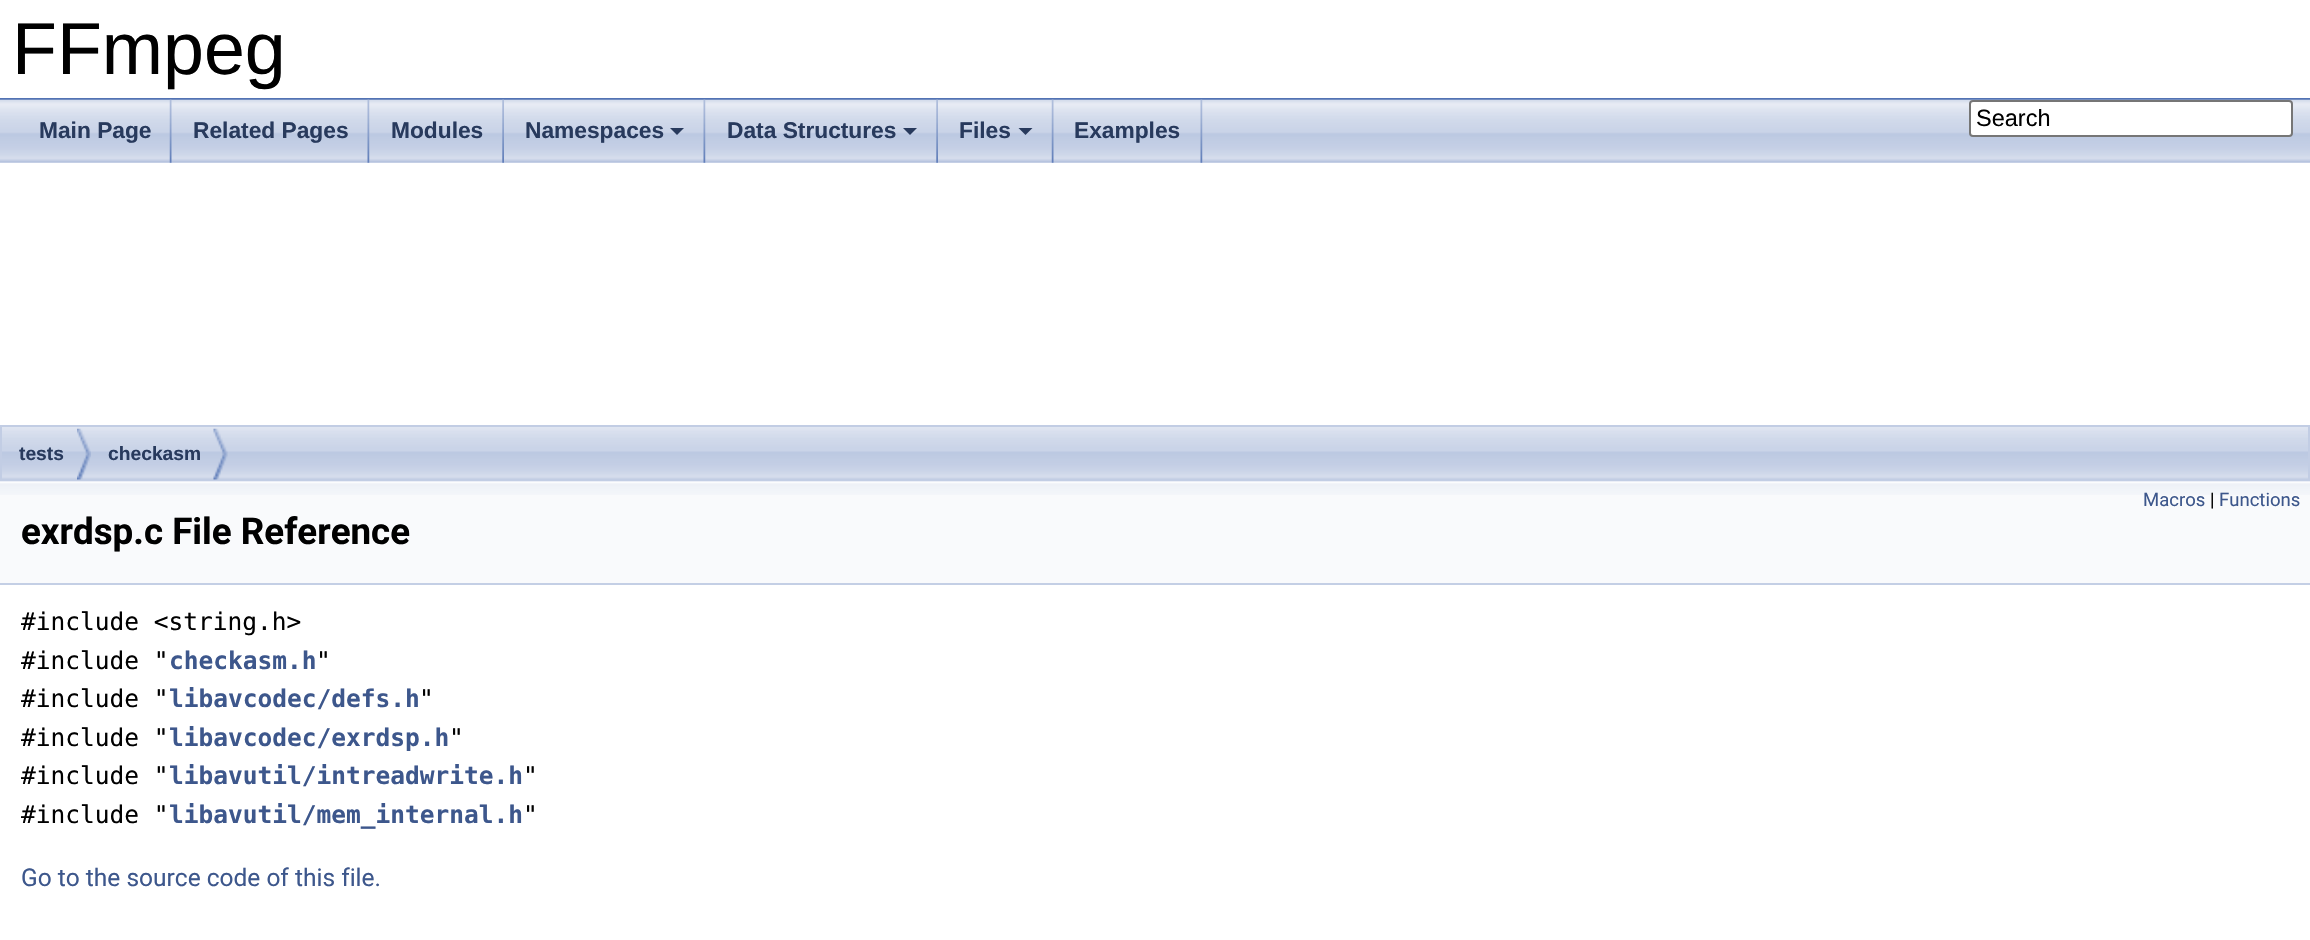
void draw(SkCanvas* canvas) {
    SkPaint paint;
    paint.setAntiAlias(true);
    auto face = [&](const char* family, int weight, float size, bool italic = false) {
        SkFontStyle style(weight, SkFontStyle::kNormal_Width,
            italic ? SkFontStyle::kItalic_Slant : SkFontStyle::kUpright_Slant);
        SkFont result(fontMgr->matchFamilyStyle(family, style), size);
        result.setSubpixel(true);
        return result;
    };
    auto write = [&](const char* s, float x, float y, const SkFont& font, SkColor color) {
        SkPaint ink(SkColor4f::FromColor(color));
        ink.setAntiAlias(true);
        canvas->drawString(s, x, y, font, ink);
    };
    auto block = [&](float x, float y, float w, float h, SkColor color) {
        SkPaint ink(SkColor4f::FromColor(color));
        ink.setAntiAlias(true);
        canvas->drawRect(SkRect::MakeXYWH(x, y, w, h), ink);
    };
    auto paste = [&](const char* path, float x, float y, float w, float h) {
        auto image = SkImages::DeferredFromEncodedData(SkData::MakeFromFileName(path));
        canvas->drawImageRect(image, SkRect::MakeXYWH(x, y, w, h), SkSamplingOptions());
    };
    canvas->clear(SK_ColorWHITE);
    block(0, 98, 2310, 2, SkColorSetRGB(83, 115, 180));
    auto kFont1 = face("Liberation Sans", 400, 73.5f);
    write("FFmpeg", 12, 74, kFont1, SK_ColorBLACK);
    paste("pic1.png", 0, 99, 2310, 64);
    paint.setColor(SK_ColorWHITE);
    canvas->drawRoundRect(SkRect::MakeXYWH(1970, 101, 322, 35), 3, 3, paint);
    paint.setStyle(SkPaint::kStroke_Style);
    paint.setStrokeWidth(2);
    paint.setColor(SkColorSetRGB(118, 118, 118));
    canvas->drawRoundRect(SkRect::MakeXYWH(1970, 101, 322, 35), 3, 3, paint);
    auto kFont2 = face("Liberation Sans", 400, 23.5f);
    write("Search", 1976, 126, kFont2, SK_ColorBLACK);
    paste("pic2.png", 169, 99, 3, 64);
    auto kFont3 = face("Liberation Sans", 700, 22.75f);
    write("Main Page", 39, 138, kFont3, SkColorSetRGB(40, 58, 93));
    paste("pic3.png", 367, 99, 3, 64);
    write("Related Pages", 193, 138, kFont3, SkColorSetRGB(40, 58, 93));
    paste("pic4.png", 502, 99, 2, 64);
    write("Modules", 391, 138, kFont3, SkColorSetRGB(40, 58, 93));
    paste("pic3.png", 703, 99, 3, 64);
    write("Namespaces", 525, 138, kFont3, SkColorSetRGB(40, 58, 93));
    paint.setStyle(SkPaint::kFill_Style);
    paint.setColor(SkColorSetRGB(40, 58, 93));
    canvas->drawPath(SkPathBuilder().moveTo(670, 128).lineTo(684, 128).lineTo(677, 135).close().detach(), paint);
    paste("pic4.png", 936, 99, 2, 64);
    write("Data Structures", 727, 138, kFont3, SkColorSetRGB(40, 58, 93));
    canvas->drawPath(SkPathBuilder().moveTo(903, 128).lineTo(917, 128).lineTo(910, 135).close().detach(), paint);
    paste("pic2.png", 1051, 99, 3, 64);
    write("Files", 959, 138, kFont3, SkColorSetRGB(40, 58, 93));
    canvas->drawPath(SkPathBuilder().moveTo(1018.5f, 128).lineTo(1032.5f, 128).lineTo(1025.5f, 135).close().detach(), paint);
    paste("pic3.png", 1200, 99, 3, 64);
    write("Examples", 1074, 138, kFont3, SkColorSetRGB(40, 58, 93));
    block(0, 481, 2310, 102, SkColorSetRGB(249, 250, 252));
    paste("pic8.png", 0, 481, 2310, 14);
    paste("pic5.png", 0, 427, 2310, 55);
    paint.setStyle(SkPaint::kStroke_Style);
    paint.setColor(SkColorSetRGB(194, 205, 228));
    canvas->drawRect(SkRect::MakeXYWH(1, 426, 2308, 54), paint);
    paste("pic6.png", 77, 428, 14, 52);
    auto kFont4 = face("Liberation Sans", 700, 19.25f);
    write("tests", 19, 460, kFont4, SkColorSetRGB(40, 58, 93));
    paste("pic7.png", 213, 428, 15, 52);
    write("checkasm", 108, 460, kFont4, SkColorSetRGB(40, 58, 93));
    block(0, 583, 2310, 2, SkColorSetRGB(196, 207, 229));
    auto kFont5 = face("Roboto", 400, 18.5f);
    write("Macros", 2143, 506, kFont5, SkColorSetRGB(61, 87, 140));
    write("|", 2210, 506, kFont5, SK_ColorBLACK);
    write("Functions", 2219, 506, kFont5, SkColorSetRGB(61, 87, 140));
    auto kFont6 = face("Roboto", 700, 36.75f);
    write("exrdsp.c File Reference", 21, 544, kFont6, SK_ColorBLACK);
    auto kFont7 = face("DejaVu Sans Mono", 400, 24.5f);
    write("#include <string.h>", 21, 630, kFont7, SK_ColorBLACK);
    write("#include \"", 21, 669, kFont7, SK_ColorBLACK);
    auto kFont8 = face("DejaVu Sans Mono", 700, 24.5f);
    write("checkasm.h", 169, 669, kFont8, SkColorSetRGB(61, 87, 140));
    write("\"", 316, 669, kFont7, SK_ColorBLACK);
    write("#include \"", 21, 707, kFont7, SK_ColorBLACK);
    write("libavcodec/defs.h", 169, 707, kFont8, SkColorSetRGB(61, 87, 140));
    write("\"", 419, 707, kFont7, SK_ColorBLACK);
    write("#include \"", 21, 746, kFont7, SK_ColorBLACK);
    write("libavcodec/exrdsp.h", 169, 746, kFont8, SkColorSetRGB(61, 87, 140));
    write("\"", 449, 746, kFont7, SK_ColorBLACK);
    write("#include \"", 21, 784, kFont7, SK_ColorBLACK);
    write("libavutil/intreadwrite.h", 169, 784, kFont8, SkColorSetRGB(61, 87, 140));
    write("\"", 523, 784, kFont7, SK_ColorBLACK);
    write("#include \"", 21, 823, kFont7, SK_ColorBLACK);
    write("libavutil/mem_internal.h", 169, 823, kFont8, SkColorSetRGB(61, 87, 140));
    write("\"", 523, 823, kFont7, SK_ColorBLACK);
    auto kFont9 = face("Roboto", 400, 24.5f);
    write("Go to the source code of this file.", 21, 886, kFont9, SkColorSetRGB(61, 87, 140));
}
